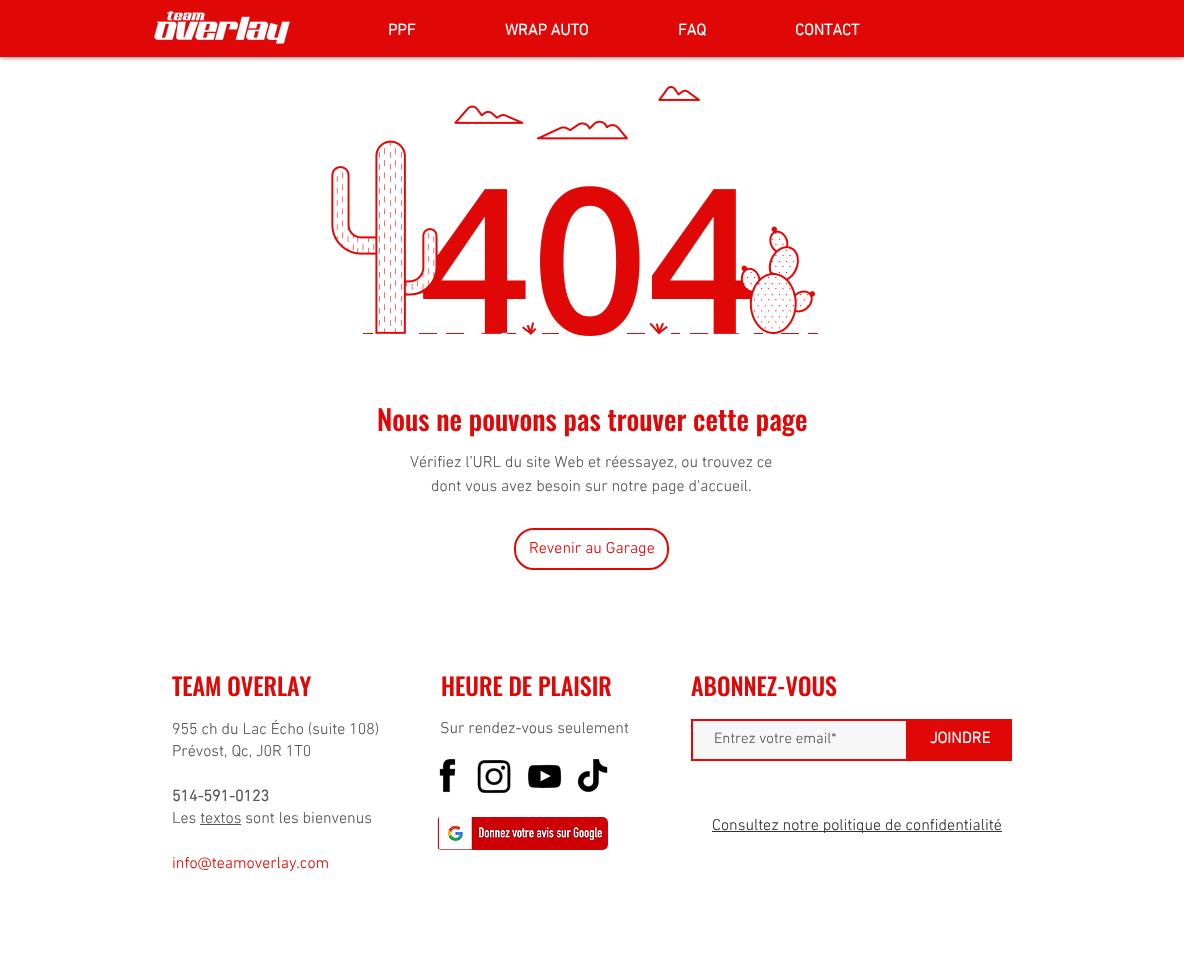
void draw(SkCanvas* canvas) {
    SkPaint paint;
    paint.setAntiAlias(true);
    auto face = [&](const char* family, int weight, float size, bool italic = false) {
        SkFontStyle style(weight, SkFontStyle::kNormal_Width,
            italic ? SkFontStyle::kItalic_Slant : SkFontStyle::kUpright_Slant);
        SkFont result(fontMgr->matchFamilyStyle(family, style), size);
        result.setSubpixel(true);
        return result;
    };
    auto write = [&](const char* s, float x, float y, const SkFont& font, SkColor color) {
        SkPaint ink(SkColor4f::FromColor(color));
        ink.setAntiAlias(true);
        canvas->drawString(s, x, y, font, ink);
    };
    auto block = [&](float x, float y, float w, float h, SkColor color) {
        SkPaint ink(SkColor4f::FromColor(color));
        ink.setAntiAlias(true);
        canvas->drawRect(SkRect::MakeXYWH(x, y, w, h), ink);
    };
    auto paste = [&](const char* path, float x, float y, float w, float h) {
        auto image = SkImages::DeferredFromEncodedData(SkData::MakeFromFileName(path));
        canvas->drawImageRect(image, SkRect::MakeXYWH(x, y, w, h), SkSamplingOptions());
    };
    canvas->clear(SK_ColorWHITE);
    paint.setColor(SkColorSetARGB(179, 0, 0, 0));
    paint.setMaskFilter(SkMaskFilter::MakeBlur(kNormal_SkBlurStyle, 2.5f));
    canvas->drawRect(SkRect::MakeXYWH(0, 0, 1184, 57), paint);
    paint.setMaskFilter(nullptr);
    block(0, 0, 1184, 57, SkColorSetRGB(224, 7, 7));
    paste("pic1.png", 154, 11, 136, 33);
    auto kFont1 = face("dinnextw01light", 700, 16);
    write("PPF", 388, 35, kFont1, SK_ColorWHITE);
    write("WRAP AUTO", 505, 35, kFont1, SK_ColorWHITE);
    write("FAQ", 678, 35, kFont1, SK_ColorWHITE);
    write("CONTACT", 795, 35, kFont1, SK_ColorWHITE);
    paste("pic2.png", 331, 86, 487, 250);
    auto kFont2 = face("Oswald", 500, 28);
    write("Nous ne pouvons pas trouver cette page", 377, 431, kFont2, SkColorSetRGB(224, 7, 7));
    auto kFont3 = face("dinnextw01light", 300, 16);
    write("Vérifiez l'URL du site Web et réessayez, ou trouvez ce", 410, 467, kFont3, SkColorSetRGB(85, 85, 85));
    write("dont vous avez besoin sur notre page d'accueil.", 431, 491, kFont3, SkColorSetRGB(85, 85, 85));
    paint.setStyle(SkPaint::kStroke_Style);
    paint.setStrokeWidth(2);
    paint.setColor(SkColorSetRGB(224, 7, 7));
    canvas->drawRoundRect(SkRect::MakeXYWH(515, 529, 153, 40), 19, 19, paint);
    write("Revenir au Garage", 529, 553, kFont3, SkColorSetRGB(224, 7, 7));
    auto kFont4 = face("Oswald", 500, 24);
    write("TEAM OVERLAY", 172, 696, kFont4, SkColorSetRGB(224, 7, 7));
    write("955 ch du Lac Écho (suite 108)", 172, 734, kFont3, SkColorSetRGB(85, 85, 85));
    write("Prévost, Qc, J0R 1T0", 172, 756, kFont3, SkColorSetRGB(85, 85, 85));
    write("514-591-0123", 172, 801, kFont1, SkColorSetRGB(85, 85, 85));
    write("Les textos sont les bienvenus", 172, 823, kFont3, SkColorSetRGB(85, 85, 85));
    block(200, 824, 41, 1, SkColorSetRGB(85, 85, 85));
    write("info@teamoverlay.com", 172, 868, kFont3, SkColorSetRGB(224, 7, 7));
    write("HEURE DE PLAISIR", 441, 696, kFont4, SkColorSetRGB(224, 7, 7));
    write("Sur rendez-vous seulement", 440, 733, kFont3, SkColorSetRGB(85, 85, 85));
    paste("pic3.png", 439, 759, 17, 34);
    paste("pic4.png", 477, 760, 34, 34);
    paste("pic5.png", 528, 764, 34, 25);
    paste("pic6.png", 577, 759, 31, 34);
    paste("pic7.png", 437, 817, 171, 33);
    write("ABONNEZ-VOUS", 691, 696, kFont4, SkColorSetRGB(224, 7, 7));
    paint.setStyle(SkPaint::kFill_Style);
    paint.setColor(SkColorSetRGB(247, 247, 247));
    canvas->drawRect(SkRect::MakeXYWH(692, 720, 215, 40), paint);
    paint.setStyle(SkPaint::kStroke_Style);
    paint.setColor(SkColorSetRGB(224, 7, 7));
    canvas->drawRect(SkRect::MakeXYWH(692, 720, 215, 40), paint);
    auto kFont5 = face("dinnextw01light", 300, 15);
    write("Entrez votre email*", 714, 743, kFont5, SkColorSetRGB(85, 85, 85));
    block(908, 719, 104, 42, SkColorSetRGB(224, 7, 7));
    write("JOINDRE", 930, 743, kFont1, SK_ColorWHITE);
    block(712, 831, 290, 1, SkColorSetRGB(51, 51, 51));
    write("Consultez notre politique de confidentialité", 712, 830, kFont3, SkColorSetRGB(51, 51, 51));
}
